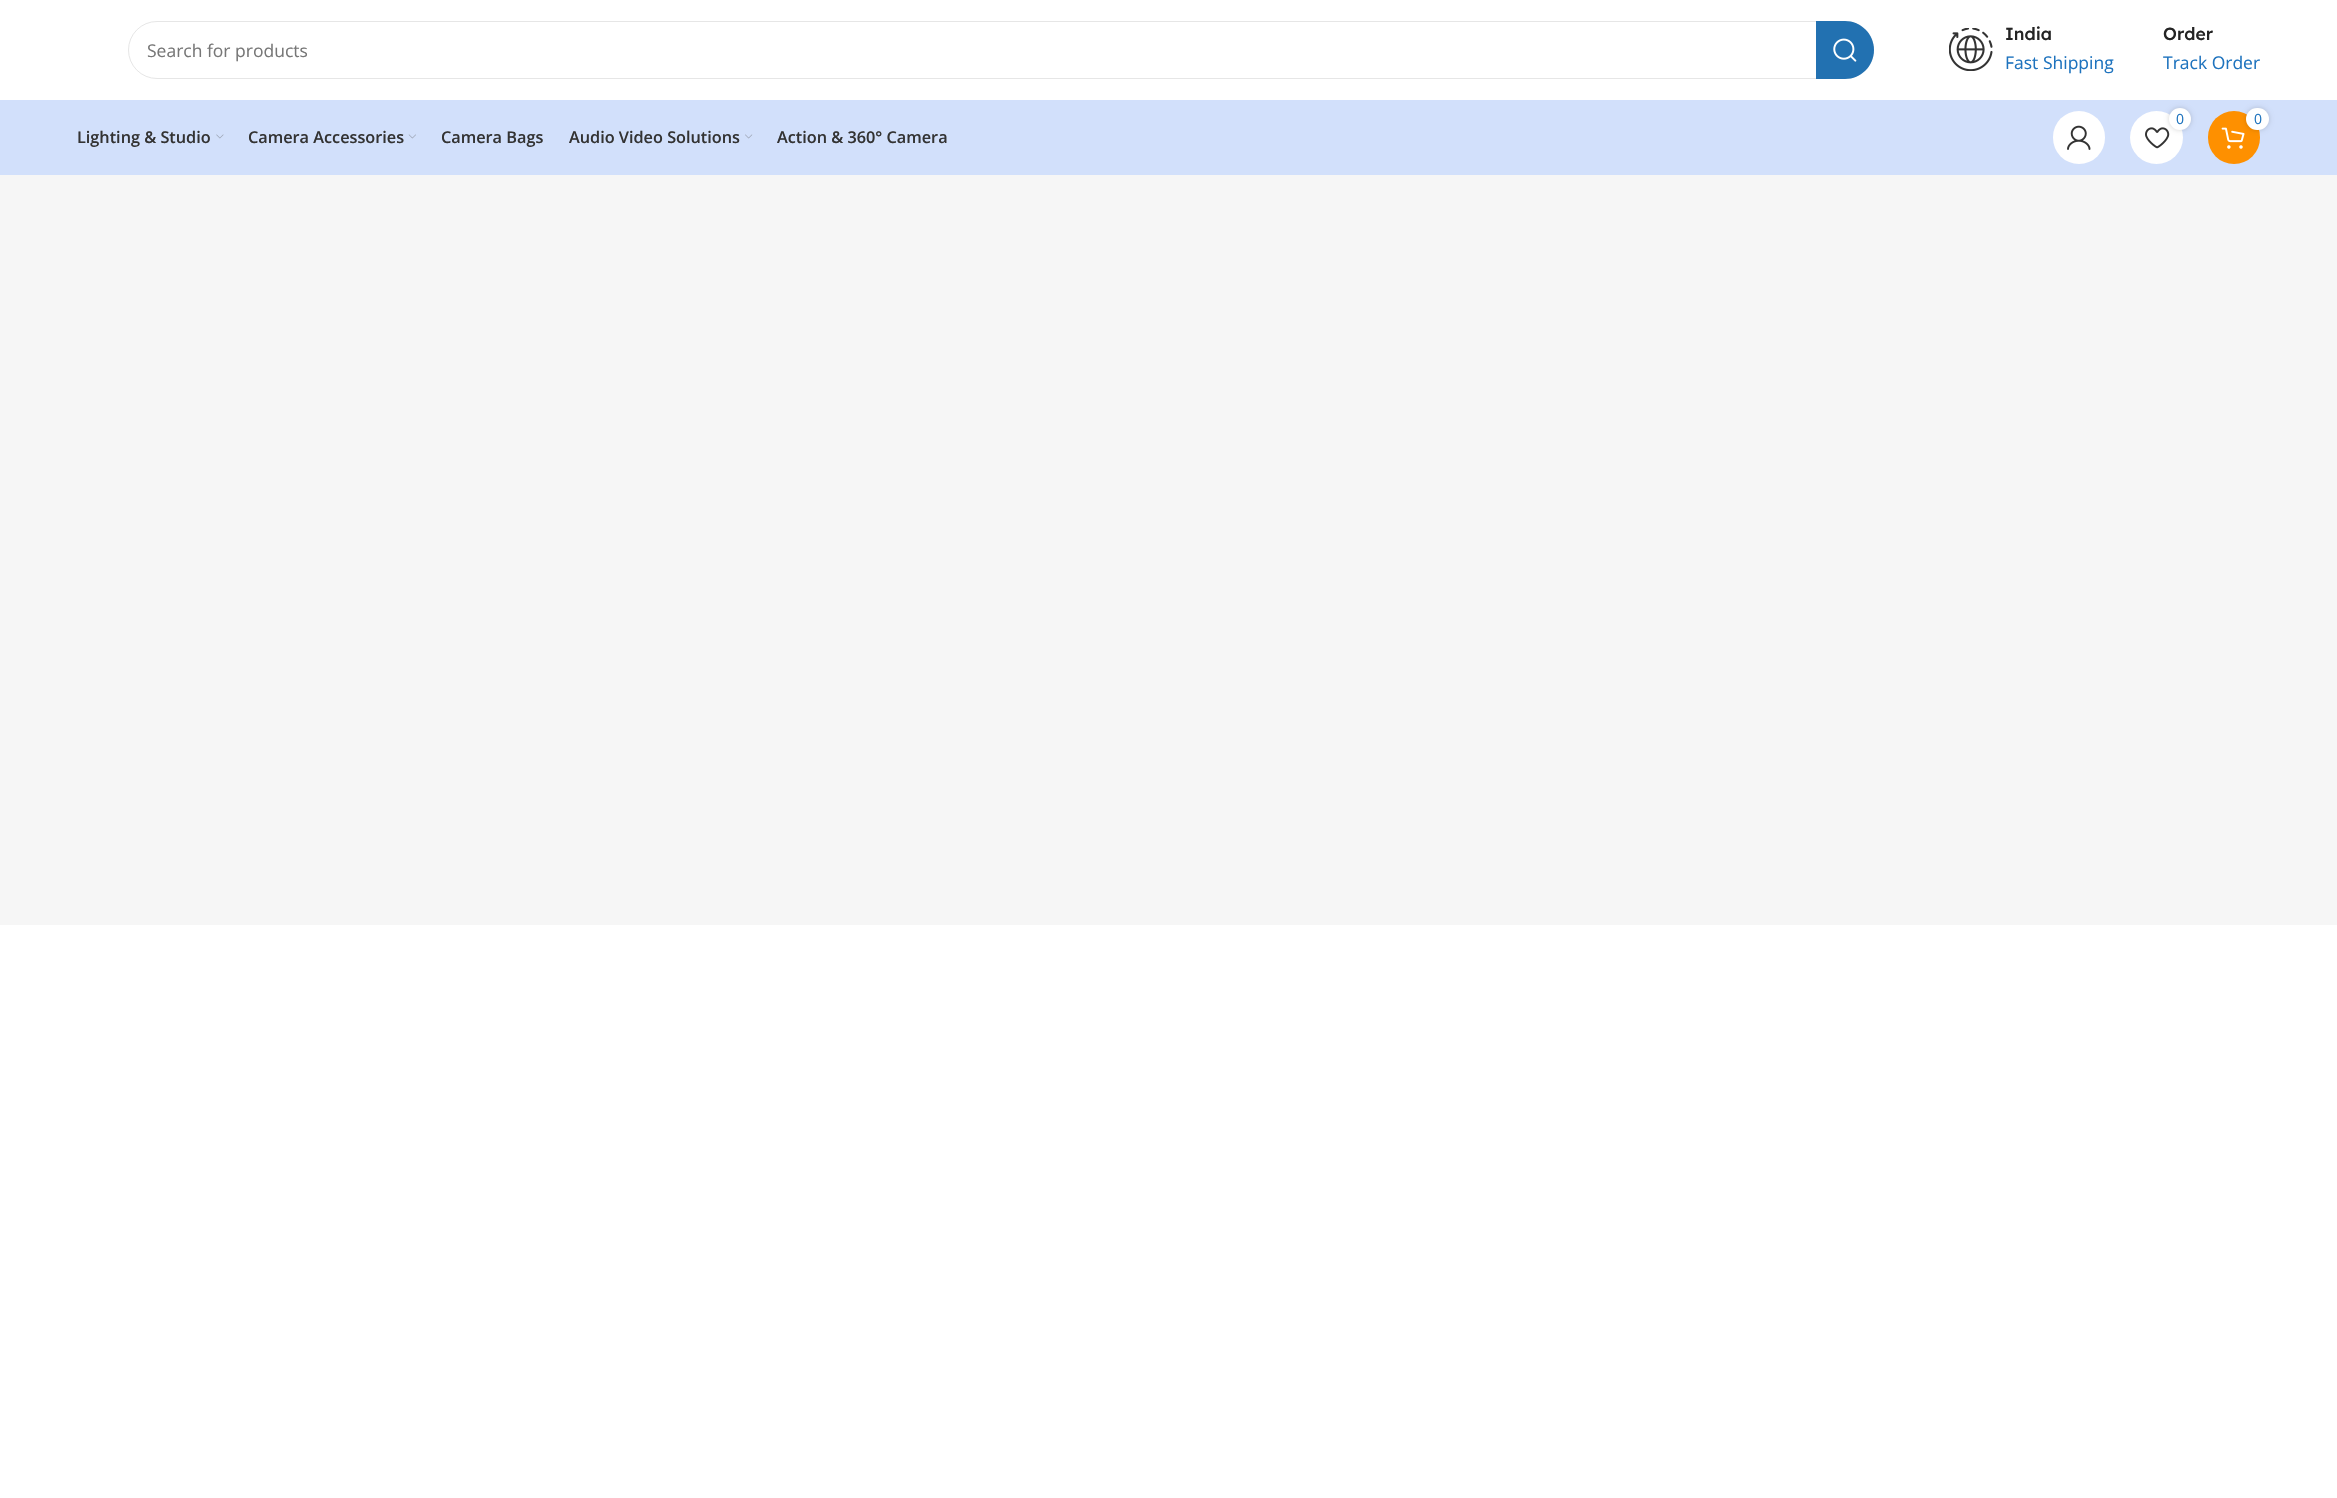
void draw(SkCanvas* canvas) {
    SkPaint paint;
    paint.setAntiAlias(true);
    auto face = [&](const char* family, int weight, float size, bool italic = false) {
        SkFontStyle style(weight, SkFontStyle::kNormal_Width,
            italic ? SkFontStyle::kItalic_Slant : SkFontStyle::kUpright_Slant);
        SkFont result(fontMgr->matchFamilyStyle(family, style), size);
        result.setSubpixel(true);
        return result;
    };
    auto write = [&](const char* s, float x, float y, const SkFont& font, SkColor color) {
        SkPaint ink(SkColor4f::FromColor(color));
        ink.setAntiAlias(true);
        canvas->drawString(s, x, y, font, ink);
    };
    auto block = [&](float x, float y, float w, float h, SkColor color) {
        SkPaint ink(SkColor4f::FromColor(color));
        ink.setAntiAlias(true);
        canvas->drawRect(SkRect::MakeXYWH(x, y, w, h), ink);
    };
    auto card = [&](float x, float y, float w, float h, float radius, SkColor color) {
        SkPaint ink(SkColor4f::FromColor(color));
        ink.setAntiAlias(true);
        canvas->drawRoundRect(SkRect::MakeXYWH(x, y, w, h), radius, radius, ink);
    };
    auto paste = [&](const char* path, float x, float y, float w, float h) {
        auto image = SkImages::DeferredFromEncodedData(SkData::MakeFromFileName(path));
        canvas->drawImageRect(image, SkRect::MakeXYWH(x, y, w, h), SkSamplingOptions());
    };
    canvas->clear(SK_ColorWHITE);
    paint.setStyle(SkPaint::kStroke_Style);
    paint.setStrokeWidth(1);
    paint.setColor(SkColorSetRGB(230, 230, 230));
    canvas->drawRoundRect(SkRect::MakeXYWH(128.5f, 21.5f, 1745, 57), 28.5f, 28.5f, paint);
    auto kFont1 = face("Open Sans", 400, 17.5f);
    write("Search for products", 147, 57, kFont1, SkColorSetRGB(119, 119, 119));
    paint.setStyle(SkPaint::kFill_Style);
    paint.setColor(SkColorSetRGB(34, 113, 177));
    canvas->drawPath(SkPathBuilder().moveTo(1816, 21).lineTo(1845, 21).cubicTo(1861, 21, 1874, 34, 1874, 50).cubicTo(1874, 66, 1861, 79, 1845, 79).lineTo(1816, 79).close().detach(), paint);
    paste("pic1.png", 1833, 38, 24, 24);
    paste("pic2.png", 1949, 28, 44, 43);
    auto kFont2 = face("Lexend Deca", 500, 17.5f);
    write("India", 2005, 40, kFont2, SkColorSetRGB(36, 36, 36));
    write("Fast Shipping", 2005, 69, kFont1, SkColorSetRGB(30, 115, 190));
    write("Order", 2163, 40, kFont2, SkColorSetRGB(36, 36, 36));
    write("Track Order", 2163, 69, kFont1, SkColorSetRGB(30, 115, 190));
    block(0, 100, 2337, 75, SkColorSetRGB(210, 224, 251));
    card(2053, 111, 52, 53, 26, SK_ColorWHITE);
    paste("pic3.png", 2067, 125, 24, 25);
    paint.setColor(SK_ColorWHITE);
    canvas->drawCircle(2156.5f, 137.5f, 26.5f, paint);
    paste("pic4.png", 2145, 127, 25, 22);
    paint.setColor(SkColorSetARGB(43, 0, 0, 0));
    paint.setMaskFilter(SkMaskFilter::MakeBlur(kNormal_SkBlurStyle, 2.5f));
    canvas->drawRoundRect(SkRect::MakeXYWH(2169, 108, 22, 22), 11, 11, paint);
    paint.setMaskFilter(nullptr);
    paint.setColor(SK_ColorWHITE);
    canvas->drawCircle(2180, 119, 11, paint);
    auto kFont3 = face("Open Sans", 400, 14);
    write("0", 2176, 124, kFont3, SkColorSetRGB(30, 115, 190));
    card(2208, 111, 52, 53, 26, SkColorSetRGB(254, 144, 0));
    paste("pic5.png", 2221, 127, 24, 22);
    paint.setColor(SkColorSetARGB(43, 0, 0, 0));
    paint.setMaskFilter(SkMaskFilter::MakeBlur(kNormal_SkBlurStyle, 2.5f));
    canvas->drawRoundRect(SkRect::MakeXYWH(2246, 108, 23, 22), 11, 11, paint);
    paint.setMaskFilter(nullptr);
    card(2246, 108, 23, 22, 11, SK_ColorWHITE);
    write("0", 2254, 124, kFont3, SkColorSetRGB(30, 115, 190));
    auto kFont4 = face("Open Sans", 600, 16.25f);
    write("Lighting & Studio", 77, 143, kFont4, SkColorSetRGB(51, 51, 51));
    paste("pic6.png", 216, 134, 8, 5);
    write("Camera Accessories", 248, 143, kFont4, SkColorSetRGB(51, 51, 51));
    paste("pic7.png", 408, 134, 8, 5);
    write("Camera Bags", 441, 143, kFont4, SkColorSetRGB(51, 51, 51));
    write("Audio Video Solutions", 569, 143, kFont4, SkColorSetRGB(51, 51, 51));
    paste("pic8.png", 745, 134, 8, 5);
    write("Action & 360° Camera", 777, 143, kFont4, SkColorSetRGB(51, 51, 51));
    block(0, 175, 2337, 750, SkColorSetRGB(246, 246, 246));
}
